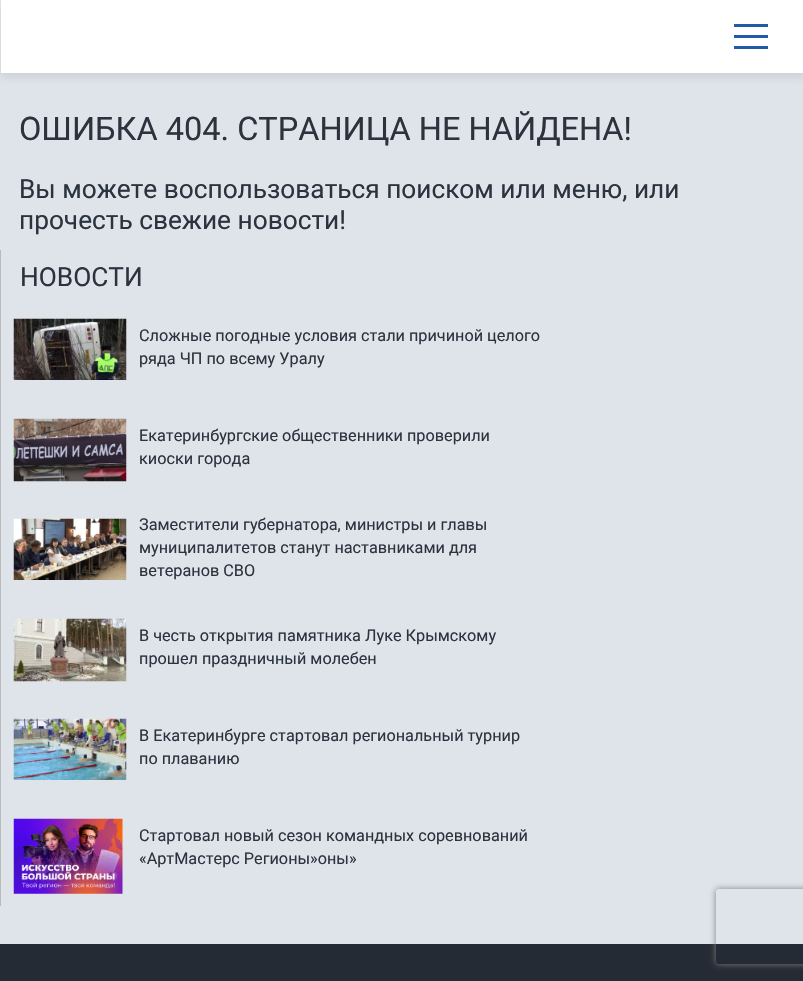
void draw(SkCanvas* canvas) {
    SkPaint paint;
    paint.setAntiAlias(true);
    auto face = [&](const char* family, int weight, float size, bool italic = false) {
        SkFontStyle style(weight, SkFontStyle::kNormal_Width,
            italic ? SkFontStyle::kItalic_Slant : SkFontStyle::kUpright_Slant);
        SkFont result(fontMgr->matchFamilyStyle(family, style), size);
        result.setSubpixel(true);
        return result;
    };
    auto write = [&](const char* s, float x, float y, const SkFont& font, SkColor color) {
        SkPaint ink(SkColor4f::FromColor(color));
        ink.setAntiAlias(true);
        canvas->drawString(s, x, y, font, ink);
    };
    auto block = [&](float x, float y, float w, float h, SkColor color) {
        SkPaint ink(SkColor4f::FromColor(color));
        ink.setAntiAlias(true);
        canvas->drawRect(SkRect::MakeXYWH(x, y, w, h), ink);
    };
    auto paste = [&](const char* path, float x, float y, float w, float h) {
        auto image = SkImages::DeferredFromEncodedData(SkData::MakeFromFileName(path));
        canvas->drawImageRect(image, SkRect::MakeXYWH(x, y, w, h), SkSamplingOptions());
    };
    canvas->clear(SkColorSetRGB(223, 227, 234));
    paint.setColor(SkColorSetARGB(31, 76, 85, 97));
    paint.setMaskFilter(SkMaskFilter::MakeBlur(kNormal_SkBlurStyle, 4));
    canvas->drawRect(SkRect::MakeXYWH(1, 5, 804, 73), paint);
    paint.setMaskFilter(nullptr);
    block(1, 0, 802, 73, SK_ColorWHITE);
    block(734, 24, 34, 3, SkColorSetRGB(32, 91, 169));
    block(734, 35, 34, 3, SkColorSetRGB(32, 91, 169));
    block(734, 46, 34, 3, SkColorSetRGB(32, 91, 169));
    auto kFont1 = face("Roboto", 400, 32.5f);
    write("ОШИБКА 404. СТРАНИЦА НЕ НАЙДЕНА!", 19, 140, kFont1, SkColorSetRGB(42, 51, 62));
    auto kFont2 = face("Roboto", 400, 26.25f);
    write("Вы можете воспользоваться поиском или меню, или", 19, 198, kFont2, SkColorSetRGB(42, 51, 62));
    write("прочесть свежие новости!", 19, 229, kFont2, SkColorSetRGB(42, 51, 62));
    block(0, 250, 1, 656, SkColorSetRGB(186, 186, 186));
    write("НОВОСТИ", 20, 286, kFont2, SkColorSetRGB(42, 51, 62));
    paste("pic1.png", 13, 318, 114, 62);
    auto kFont3 = face("Roboto", 400, 16.25f);
    write("Сложные погодные условия стали причиной целого", 139, 341, kFont3, SkColorSetRGB(42, 51, 62));
    write("ряда ЧП по всему Уралу", 139, 364, kFont3, SkColorSetRGB(42, 51, 62));
    paste("pic2.png", 13, 418, 114, 64);
    write("Екатеринбургские общественники проверили", 139, 441, kFont3, SkColorSetRGB(42, 51, 62));
    write("киоски города", 139, 464, kFont3, SkColorSetRGB(42, 51, 62));
    paste("pic3.png", 13, 518, 114, 62);
    write("Заместители губернатора, министры и главы", 139, 530, kFont3, SkColorSetRGB(42, 51, 62));
    write("муниципалитетов станут наставниками для", 139, 553, kFont3, SkColorSetRGB(42, 51, 62));
    write("ветеранов СВО", 139, 576, kFont3, SkColorSetRGB(42, 51, 62));
    paste("pic4.png", 13, 618, 114, 64);
    write("В честь открытия памятника Луке Крымскому", 139, 641, kFont3, SkColorSetRGB(42, 51, 62));
    write("прошел праздничный молебен", 139, 664, kFont3, SkColorSetRGB(42, 51, 62));
    paste("pic5.png", 13, 718, 114, 62);
    write("В Екатеринбурге стартовал региональный турнир", 139, 741, kFont3, SkColorSetRGB(42, 51, 62));
    write("по плаванию", 139, 764, kFont3, SkColorSetRGB(42, 51, 62));
    paste("pic6.png", 13, 818, 110, 76);
    write("Стартовал новый сезон командных соревнований", 139, 841, kFont3, SkColorSetRGB(42, 51, 62));
    write("«АртМастерс Регионы»оны»", 139, 864, kFont3, SkColorSetRGB(42, 51, 62));
    block(0, 944, 803, 37, SkColorSetRGB(37, 43, 52));
    canvas->save();
    canvas->clipPath(SkPathBuilder(SkPathFillType::kEvenOdd).moveTo(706, 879).lineTo(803, 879).lineTo(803, 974).lineTo(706, 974).close().moveTo(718.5f, 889).lineTo(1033.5f, 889).cubicTo(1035, 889, 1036, 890, 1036, 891.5f).lineTo(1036, 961.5f).cubicTo(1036, 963, 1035, 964, 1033.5f, 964).lineTo(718.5f, 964).cubicTo(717, 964, 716, 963, 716, 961.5f).lineTo(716, 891.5f).cubicTo(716, 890, 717, 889, 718.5f, 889).close().detach(), true);
    paint.setColor(SkColorSetRGB(128, 128, 128));
    paint.setMaskFilter(SkMaskFilter::MakeBlur(kNormal_SkBlurStyle, 3));
    canvas->drawRoundRect(SkRect::MakeXYWH(716, 889, 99, 75), 2.5f, 2.5f, paint);
    paint.setMaskFilter(nullptr);
    canvas->restore();
}
